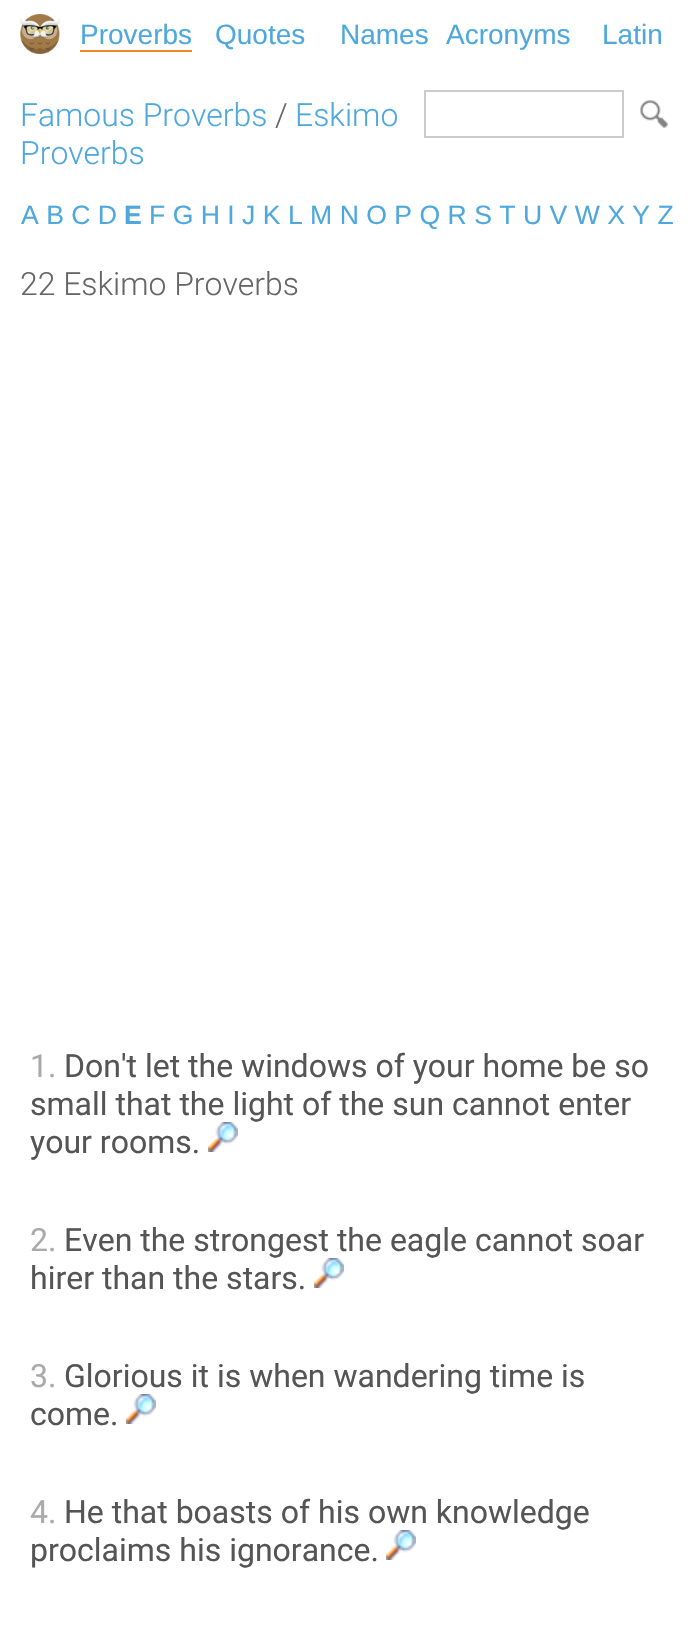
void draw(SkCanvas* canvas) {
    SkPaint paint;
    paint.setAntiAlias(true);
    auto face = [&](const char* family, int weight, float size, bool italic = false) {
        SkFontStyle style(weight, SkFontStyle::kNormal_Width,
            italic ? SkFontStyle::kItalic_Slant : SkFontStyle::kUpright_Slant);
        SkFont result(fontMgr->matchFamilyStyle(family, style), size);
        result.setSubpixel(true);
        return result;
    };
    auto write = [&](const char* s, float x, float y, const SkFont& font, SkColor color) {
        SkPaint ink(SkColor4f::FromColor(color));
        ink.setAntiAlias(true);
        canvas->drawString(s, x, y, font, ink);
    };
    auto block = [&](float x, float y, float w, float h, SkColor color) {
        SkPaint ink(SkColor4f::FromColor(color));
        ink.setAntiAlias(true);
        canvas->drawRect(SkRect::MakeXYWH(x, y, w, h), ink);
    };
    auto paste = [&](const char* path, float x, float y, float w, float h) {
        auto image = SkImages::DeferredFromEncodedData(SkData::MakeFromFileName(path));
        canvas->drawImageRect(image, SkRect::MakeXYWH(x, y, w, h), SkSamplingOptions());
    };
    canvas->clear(SK_ColorWHITE);
    paste("pic1.png", 20, 14, 40, 40);
    auto kFont1 = face("Liberation Sans", 400, 28);
    write("Proverbs", 80, 44, kFont1, SkColorSetRGB(78, 168, 222));
    block(80, 50, 112, 2, SkColorSetRGB(245, 135, 35));
    write("Quotes", 215, 44, kFont1, SkColorSetRGB(78, 168, 222));
    write("Names", 340, 44, kFont1, SkColorSetRGB(78, 168, 222));
    write("Acronyms", 446, 44, kFont1, SkColorSetRGB(78, 168, 222));
    write("Latin", 602, 44, kFont1, SkColorSetRGB(78, 168, 222));
    auto kFont2 = face("Roboto", 300, 31.9f);
    write("Famous Proverbs", 20, 126, kFont2, SkColorSetRGB(78, 168, 222));
    write("/", 275, 126, kFont2, SkColorSetRGB(102, 102, 102));
    write("Eskimo", 295, 126, kFont2, SkColorSetRGB(78, 168, 222));
    write("Proverbs", 20, 164, kFont2, SkColorSetRGB(78, 168, 222));
    paint.setStyle(SkPaint::kStroke_Style);
    paint.setStrokeWidth(2);
    paint.setColor(SkColorSetRGB(204, 204, 204));
    canvas->drawRect(SkRect::MakeXYWH(425, 91, 198, 46), paint);
    paste("pic2.png", 640, 100, 28, 28);
    auto kFont3 = face("Liberation Sans", 400, 26.6f);
    write("A B C D", 21, 224, kFont3, SkColorSetRGB(78, 168, 222));
    auto kFont4 = face("Liberation Sans", 700, 26.6f);
    write("E", 124, 224, kFont4, SkColorSetRGB(78, 168, 222));
    write("F G H I J K L M N O P Q R S T U V W X Y Z", 149, 224, kFont3, SkColorSetRGB(78, 168, 222));
    write("22 Eskimo Proverbs", 20, 295, kFont2, SkColorSetRGB(102, 102, 102));
    auto kFont5 = face("Roboto", 400, 32);
    write("1.", 30, 1077, kFont5, SkColorSetRGB(170, 170, 170));
    write("Don't let the windows of your home be so", 64, 1077, kFont5, SkColorSetRGB(85, 85, 85));
    write("small that the light of the sun cannot enter", 30, 1115, kFont5, SkColorSetRGB(85, 85, 85));
    write("your rooms.", 30, 1153, kFont5, SkColorSetRGB(85, 85, 85));
    paste("pic3.png", 208, 1122, 30, 30);
    write("2.", 30, 1251, kFont5, SkColorSetRGB(170, 170, 170));
    write("Even the strongest the eagle cannot soar", 64, 1251, kFont5, SkColorSetRGB(85, 85, 85));
    write("hirer than the stars.", 30, 1289, kFont5, SkColorSetRGB(85, 85, 85));
    paste("pic3.png", 314, 1258, 30, 30);
    write("3.", 30, 1387, kFont5, SkColorSetRGB(170, 170, 170));
    write("Glorious it is when wandering time is", 64, 1387, kFont5, SkColorSetRGB(85, 85, 85));
    write("come.", 30, 1425, kFont5, SkColorSetRGB(85, 85, 85));
    paste("pic3.png", 126, 1394, 30, 30);
    write("4.", 30, 1523, kFont5, SkColorSetRGB(170, 170, 170));
    write("He that boasts of his own knowledge", 64, 1523, kFont5, SkColorSetRGB(85, 85, 85));
    write("proclaims his ignorance.", 30, 1561, kFont5, SkColorSetRGB(85, 85, 85));
    paste("pic3.png", 386, 1530, 30, 30);
}
